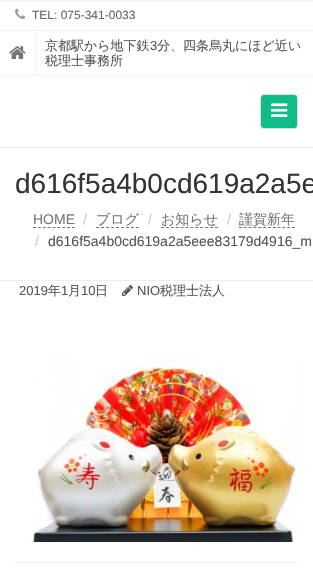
void draw(SkCanvas* canvas) {
    SkPaint paint;
    paint.setAntiAlias(true);
    auto face = [&](const char* family, int weight, float size, bool italic = false) {
        SkFontStyle style(weight, SkFontStyle::kNormal_Width,
            italic ? SkFontStyle::kItalic_Slant : SkFontStyle::kUpright_Slant);
        SkFont result(fontMgr->matchFamilyStyle(family, style), size);
        result.setSubpixel(true);
        return result;
    };
    auto write = [&](const char* s, float x, float y, const SkFont& font, SkColor color) {
        SkPaint ink(SkColor4f::FromColor(color));
        ink.setAntiAlias(true);
        canvas->drawString(s, x, y, font, ink);
    };
    auto block = [&](float x, float y, float w, float h, SkColor color) {
        SkPaint ink(SkColor4f::FromColor(color));
        ink.setAntiAlias(true);
        canvas->drawRect(SkRect::MakeXYWH(x, y, w, h), ink);
    };
    auto paste = [&](const char* path, float x, float y, float w, float h) {
        auto image = SkImages::DeferredFromEncodedData(SkData::MakeFromFileName(path));
        canvas->drawImageRect(image, SkRect::MakeXYWH(x, y, w, h), SkSamplingOptions());
    };
    canvas->clear(SK_ColorWHITE);
    block(0, 147, 313, 1, SkColorSetRGB(238, 238, 238));
    block(0, 0, 313, 1, SkColorSetRGB(240, 240, 240));
    block(0, 75, 313, 1, SkColorSetRGB(240, 240, 240));
    paste("pic1.png", 15, 8, 11, 11);
    auto kFont1 = face("Liberation Sans", 400, 12);
    write("TEL: 075-341-0033", 32, 19, kFont1, SkColorSetRGB(102, 102, 102));
    block(0, 30, 313, 1, SkColorSetRGB(240, 240, 240));
    block(35, 31, 1, 44, SkColorSetRGB(240, 240, 240));
    paste("pic2.png", 9, 46, 17, 13);
    auto kFont2 = face("WenQuanYi Zen Hei", 500, 13);
    write("京都駅から地下鉄", 45, 50, kFont2, SkColorSetRGB(85, 85, 85));
    auto kFont3 = face("Liberation Sans", 400, 13);
    write("3", 150, 50, kFont3, SkColorSetRGB(85, 85, 85));
    write("分、四条烏丸にほど近い", 157, 50, kFont2, SkColorSetRGB(85, 85, 85));
    write("税理士事務所", 45, 65, kFont2, SkColorSetRGB(85, 85, 85));
    paint.setColor(SkColorSetRGB(15, 188, 136));
    canvas->drawRoundRect(SkRect::MakeXYWH(260.5f, 94.5f, 37, 34), 3.5f, 3.5f, paint);
    paint.setStyle(SkPaint::kStroke_Style);
    paint.setStrokeWidth(1);
    paint.setColor(SkColorSetRGB(221, 221, 221));
    canvas->drawRoundRect(SkRect::MakeXYWH(260.5f, 94.5f, 37, 34), 3.5f, 3.5f, paint);
    paste("pic3.png", 271, 103, 17, 14);
    block(0, 280, 313, 1, SkColorSetRGB(238, 238, 238));
    auto kFont4 = face("Liberation Sans", 400, 28);
    write("d616f5a4b0cd619a2a5e", 15, 193, kFont4, SkColorSetRGB(51, 51, 51));
    auto kFont5 = face("Liberation Sans", 400, 14);
    write("HOME", 33, 224, kFont5, SkColorSetRGB(119, 119, 119));
    paint.setColor(SkColorSetRGB(119, 119, 119));
    paint.setPathEffect(SkDashPathEffect::Make({{3, 1.88f}}, 0));
    canvas->drawPath(SkPathBuilder().moveTo(33, 227.5f).lineTo(75, 227.5f).detach(), paint);
    paint.setPathEffect(nullptr);
    write("/", 83, 224, kFont5, SkColorSetRGB(204, 204, 204));
    auto kFont6 = face("WenQuanYi Zen Hei", 500, 14);
    write("ブログ", 96, 224, kFont6, SkColorSetRGB(119, 119, 119));
    paint.setPathEffect(SkDashPathEffect::Make({{3, 2}}, 0));
    canvas->drawPath(SkPathBuilder().moveTo(96, 227.5f).lineTo(139, 227.5f).detach(), paint);
    paint.setPathEffect(nullptr);
    write("/", 148, 224, kFont5, SkColorSetRGB(204, 204, 204));
    write("お知らせ", 161, 224, kFont6, SkColorSetRGB(119, 119, 119));
    paint.setPathEffect(SkDashPathEffect::Make({{3, 1.91f}}, 0));
    canvas->drawPath(SkPathBuilder().moveTo(161, 227.5f).lineTo(218, 227.5f).detach(), paint);
    paint.setPathEffect(nullptr);
    write("/", 227, 224, kFont5, SkColorSetRGB(204, 204, 204));
    write("謹賀新年", 239, 224, kFont6, SkColorSetRGB(119, 119, 119));
    paint.setPathEffect(SkDashPathEffect::Make({{3, 1.82f}}, 0));
    canvas->drawPath(SkPathBuilder().moveTo(239, 227.5f).lineTo(295, 227.5f).detach(), paint);
    paint.setPathEffect(nullptr);
    write("/", 35, 246, kFont5, SkColorSetRGB(204, 204, 204));
    write("d616f5a4b0cd619a2a5eee83179d4916_m", 48, 246, kFont5, SkColorSetRGB(85, 85, 85));
    write("2019", 19, 295, kFont3, SkColorSetRGB(85, 85, 85));
    write("年", 48, 295, kFont2, SkColorSetRGB(85, 85, 85));
    write("1", 61, 295, kFont3, SkColorSetRGB(85, 85, 85));
    write("月", 68, 295, kFont2, SkColorSetRGB(85, 85, 85));
    write("10", 81, 295, kFont3, SkColorSetRGB(85, 85, 85));
    write("日", 95, 295, kFont2, SkColorSetRGB(85, 85, 85));
    paste("pic4.png", 122, 285, 11, 11);
    write("NIO", 137, 295, kFont3, SkColorSetRGB(85, 85, 85));
    write("税理士法人", 160, 295, kFont2, SkColorSetRGB(85, 85, 85));
    paste("pic5.png", 31, 358, 273, 184);
    block(15, 562, 283, 1, SkColorSetRGB(238, 238, 238));
}
